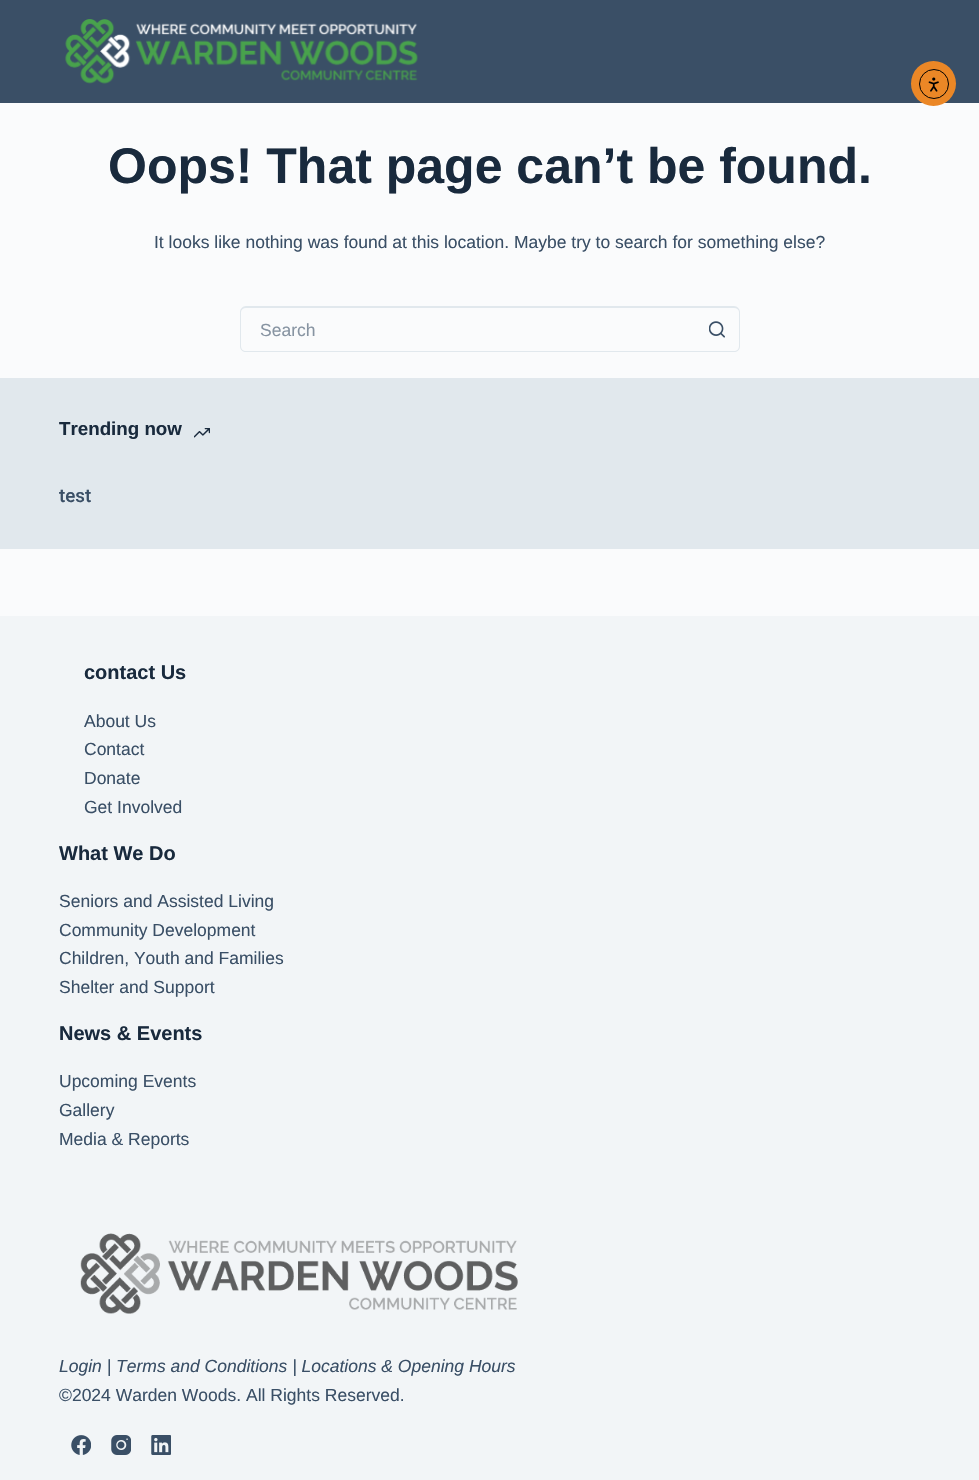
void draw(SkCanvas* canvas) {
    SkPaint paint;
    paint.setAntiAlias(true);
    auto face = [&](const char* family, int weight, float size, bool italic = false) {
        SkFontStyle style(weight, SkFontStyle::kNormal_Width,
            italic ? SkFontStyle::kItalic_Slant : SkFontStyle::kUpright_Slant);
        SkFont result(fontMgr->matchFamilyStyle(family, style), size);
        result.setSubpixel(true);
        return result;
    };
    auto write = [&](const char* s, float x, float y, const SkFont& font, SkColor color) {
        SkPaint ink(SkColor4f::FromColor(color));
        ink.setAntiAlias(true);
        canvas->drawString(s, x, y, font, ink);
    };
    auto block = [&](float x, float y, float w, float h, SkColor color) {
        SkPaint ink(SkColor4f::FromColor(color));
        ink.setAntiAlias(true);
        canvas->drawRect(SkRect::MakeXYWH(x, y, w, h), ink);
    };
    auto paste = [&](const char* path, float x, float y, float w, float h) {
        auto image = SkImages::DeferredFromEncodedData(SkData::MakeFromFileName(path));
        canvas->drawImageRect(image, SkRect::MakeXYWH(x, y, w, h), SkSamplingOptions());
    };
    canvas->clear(SkColorSetRGB(250, 251, 252));
    block(0, 0, 979, 103, SkColorSetRGB(58, 79, 102));
    paint.setColor(SkColorSetRGB(235, 135, 38));
    canvas->drawCircle(933.5f, 83.5f, 22.5f, paint);
    paint.setStyle(SkPaint::kStroke_Style);
    paint.setStrokeWidth(1);
    paint.setColor(SK_ColorBLACK);
    canvas->drawCircle(934, 84, 14.5f, paint);
    paste("pic1.png", 928, 77, 11, 15);
    paste("pic2.png", 65, 19, 353, 65);
    auto kFont1 = face("Liberation Sans", 700, 50);
    write("Oops! That page can’t be found.", 108, 183, kFont1, SkColorSetRGB(25, 42, 61));
    auto kFont2 = face("Liberation Sans", 400, 17.5f);
    write("It looks like nothing was found at this location. Maybe try to search for something else?", 154, 248, kFont2, SkColorSetRGB(58, 79, 102));
    paint.setStyle(SkPaint::kFill_Style);
    paint.setColor(SkColorSetRGB(225, 232, 237));
    canvas->drawPath(SkPathBuilder(SkPathFillType::kEvenOdd).moveTo(246, 306).lineTo(694, 306).lineTo(694, 352).lineTo(246, 352).cubicTo(243, 352, 240, 350, 240, 346).lineTo(240, 312).cubicTo(240, 309, 243, 306, 246, 306).close().moveTo(246, 308).lineTo(694, 308).lineTo(694, 351).lineTo(246, 351).cubicTo(243, 351, 241, 349, 241, 346).lineTo(241, 312).cubicTo(241, 310, 243, 308, 246, 308).close().detach(), paint);
    write("Search", 260, 336, kFont2, SkColorSetRGB(135, 148, 162));
    canvas->drawPath(SkPathBuilder(SkPathFillType::kEvenOdd).moveTo(694, 306).lineTo(734, 306).cubicTo(737, 306, 740, 309, 740, 312).lineTo(740, 346).cubicTo(740, 350, 737, 352, 734, 352).lineTo(694, 352).close().moveTo(694, 308).lineTo(734, 308).cubicTo(737, 308, 739, 310, 739, 312).lineTo(739, 346).cubicTo(739, 349, 737, 351, 734, 351).lineTo(694, 351).close().detach(), paint);
    paste("pic3.png", 709, 321, 16, 17);
    block(0, 378, 979, 171, SkColorSetRGB(225, 232, 237));
    auto kFont3 = face("Liberation Sans", 700, 18.75f);
    write("Trending now", 59, 435, kFont3, SkColorSetRGB(25, 42, 61));
    paste("pic4.png", 194, 428, 16, 10);
    auto kFont4 = face("Roboto", 500, 18.75f);
    write("test", 59, 502, kFont4, SkColorSetRGB(58, 79, 102));
    block(0, 616, 979, 864, SkColorSetRGB(242, 245, 247));
    auto kFont5 = face("Liberation Sans", 700, 20);
    write("contact Us", 84, 679, kFont5, SkColorSetRGB(25, 42, 61));
    write("About Us", 84, 727, kFont2, SkColorSetRGB(58, 79, 102));
    write("Contact", 84, 755, kFont2, SkColorSetRGB(58, 79, 102));
    write("Donate", 84, 784, kFont2, SkColorSetRGB(58, 79, 102));
    write("Get Involved", 84, 813, kFont2, SkColorSetRGB(58, 79, 102));
    write("What We Do", 59, 860, kFont5, SkColorSetRGB(25, 42, 61));
    write("Seniors and Assisted Living", 59, 907, kFont2, SkColorSetRGB(58, 79, 102));
    write("Community Development", 59, 936, kFont2, SkColorSetRGB(58, 79, 102));
    write("Children, Youth and Families", 59, 964, kFont2, SkColorSetRGB(58, 79, 102));
    write("Shelter and Support", 59, 993, kFont2, SkColorSetRGB(58, 79, 102));
    write("News & Events", 59, 1040, kFont5, SkColorSetRGB(25, 42, 61));
    write("Upcoming Events", 59, 1087, kFont2, SkColorSetRGB(58, 79, 102));
    write("Gallery", 59, 1116, kFont2, SkColorSetRGB(58, 79, 102));
    write("Media & Reports", 59, 1145, kFont2, SkColorSetRGB(58, 79, 102));
    paste("pic5.png", 80, 1233, 438, 81);
    auto kFont6 = face("Liberation Sans", 400, 17.5f, true);
    write("Login | Terms and Conditions | Locations & Opening Hours", 59, 1372, kFont6, SkColorSetRGB(58, 79, 102));
    write("©2024 Warden Woods. All Rights Reserved.", 59, 1401, kFont2, SkColorSetRGB(58, 79, 102));
    paste("pic6.png", 71, 1435, 20, 20);
    paste("pic7.png", 111, 1435, 20, 20);
    paste("pic8.png", 151, 1435, 20, 20);
}
